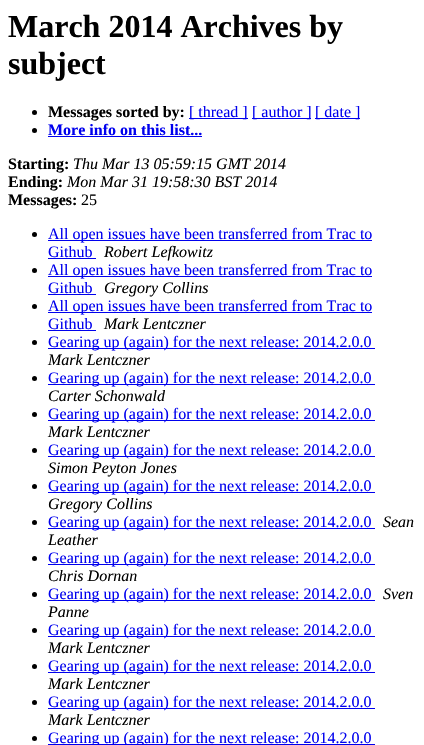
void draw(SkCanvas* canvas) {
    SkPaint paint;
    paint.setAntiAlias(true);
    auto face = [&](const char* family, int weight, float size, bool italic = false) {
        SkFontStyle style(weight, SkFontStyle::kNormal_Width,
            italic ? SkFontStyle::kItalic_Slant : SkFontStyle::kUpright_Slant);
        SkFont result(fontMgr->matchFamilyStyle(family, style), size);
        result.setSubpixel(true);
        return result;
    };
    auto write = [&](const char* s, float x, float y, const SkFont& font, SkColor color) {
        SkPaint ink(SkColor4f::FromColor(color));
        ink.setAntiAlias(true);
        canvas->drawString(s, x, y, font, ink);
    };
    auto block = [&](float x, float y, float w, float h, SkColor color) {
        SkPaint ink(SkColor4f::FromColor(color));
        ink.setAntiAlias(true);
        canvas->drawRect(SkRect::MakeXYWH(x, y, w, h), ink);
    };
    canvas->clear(SK_ColorWHITE);
    auto kFont1 = face("Liberation Serif", 700, 32);
    write("March 2014 Archives by", 8, 37, kFont1, SK_ColorBLACK);
    write("subject", 8, 74, kFont1, SK_ColorBLACK);
    paint.setColor(SK_ColorBLACK);
    canvas->drawCircle(34.5f, 112.5f, 2.5f, paint);
    auto kFont2 = face("Liberation Serif", 700, 16);
    write("Messages sorted by:", 48, 117, kFont2, SK_ColorBLACK);
    block(189, 118, 59, 1, SkColorSetRGB(0, 0, 238));
    auto kFont3 = face("Liberation Serif", 400, 16);
    write("[ thread ]", 189, 117, kFont3, SkColorSetRGB(0, 0, 238));
    block(252, 118, 59, 1, SkColorSetRGB(0, 0, 238));
    write("[ author ]", 252, 117, kFont3, SkColorSetRGB(0, 0, 238));
    block(315, 118, 45, 1, SkColorSetRGB(0, 0, 238));
    write("[ date ]", 315, 117, kFont3, SkColorSetRGB(0, 0, 238));
    canvas->drawCircle(34.5f, 130.5f, 2.5f, paint);
    write("More info on this list...", 48, 135, kFont2, SkColorSetRGB(0, 0, 238));
    block(48, 136, 154, 1, SkColorSetRGB(0, 0, 238));
    write("Starting:", 8, 169, kFont2, SK_ColorBLACK);
    auto kFont4 = face("Liberation Serif", 400, 16, true);
    write("Thu Mar 13 05:59:15 GMT 2014", 73, 169, kFont4, SK_ColorBLACK);
    write("Ending:", 8, 187, kFont2, SK_ColorBLACK);
    write("Mon Mar 31 19:58:30 BST 2014", 67, 187, kFont4, SK_ColorBLACK);
    write("Messages:", 8, 205, kFont2, SK_ColorBLACK);
    write("25", 81, 205, kFont3, SK_ColorBLACK);
    canvas->drawCircle(34.5f, 234.5f, 2.5f, paint);
    block(48, 240, 324, 1, SkColorSetRGB(0, 0, 238));
    write("All open issues have been transferred from Trac to", 48, 239, kFont3, SkColorSetRGB(0, 0, 238));
    write("Github", 48, 257, kFont3, SkColorSetRGB(0, 0, 238));
    block(48, 258, 48, 1, SkColorSetRGB(0, 0, 238));
    write("Robert Lefkowitz", 104, 257, kFont4, SK_ColorBLACK);
    canvas->drawCircle(34.5f, 270.5f, 2.5f, paint);
    block(48, 276, 324, 1, SkColorSetRGB(0, 0, 238));
    write("All open issues have been transferred from Trac to", 48, 275, kFont3, SkColorSetRGB(0, 0, 238));
    write("Github", 48, 293, kFont3, SkColorSetRGB(0, 0, 238));
    block(48, 294, 48, 1, SkColorSetRGB(0, 0, 238));
    write("Gregory Collins", 104, 293, kFont4, SK_ColorBLACK);
    canvas->drawCircle(34.5f, 306.5f, 2.5f, paint);
    block(48, 312, 324, 1, SkColorSetRGB(0, 0, 238));
    write("All open issues have been transferred from Trac to", 48, 311, kFont3, SkColorSetRGB(0, 0, 238));
    write("Github", 48, 329, kFont3, SkColorSetRGB(0, 0, 238));
    block(48, 330, 48, 1, SkColorSetRGB(0, 0, 238));
    write("Mark Lentczner", 104, 329, kFont4, SK_ColorBLACK);
    canvas->drawCircle(34.5f, 342.5f, 2.5f, paint);
    block(48, 348, 327, 1, SkColorSetRGB(0, 0, 238));
    write("Gearing up (again) for the next release: 2014.2.0.0", 48, 347, kFont3, SkColorSetRGB(0, 0, 238));
    write("Mark Lentczner", 48, 365, kFont4, SK_ColorBLACK);
    canvas->drawCircle(34.5f, 378.5f, 2.5f, paint);
    block(48, 384, 327, 1, SkColorSetRGB(0, 0, 238));
    write("Gearing up (again) for the next release: 2014.2.0.0", 48, 383, kFont3, SkColorSetRGB(0, 0, 238));
    write("Carter Schonwald", 48, 401, kFont4, SK_ColorBLACK);
    canvas->drawCircle(34.5f, 414.5f, 2.5f, paint);
    block(48, 420, 327, 1, SkColorSetRGB(0, 0, 238));
    write("Gearing up (again) for the next release: 2014.2.0.0", 48, 419, kFont3, SkColorSetRGB(0, 0, 238));
    write("Mark Lentczner", 48, 437, kFont4, SK_ColorBLACK);
    canvas->drawCircle(34.5f, 450.5f, 2.5f, paint);
    block(48, 456, 327, 1, SkColorSetRGB(0, 0, 238));
    write("Gearing up (again) for the next release: 2014.2.0.0", 48, 455, kFont3, SkColorSetRGB(0, 0, 238));
    write("Simon Peyton Jones", 48, 473, kFont4, SK_ColorBLACK);
    canvas->drawCircle(34.5f, 486.5f, 2.5f, paint);
    block(48, 492, 327, 1, SkColorSetRGB(0, 0, 238));
    write("Gearing up (again) for the next release: 2014.2.0.0", 48, 491, kFont3, SkColorSetRGB(0, 0, 238));
    write("Gregory Collins", 48, 509, kFont4, SK_ColorBLACK);
    canvas->drawCircle(34.5f, 522.5f, 2.5f, paint);
    block(48, 528, 327, 1, SkColorSetRGB(0, 0, 238));
    write("Gearing up (again) for the next release: 2014.2.0.0", 48, 527, kFont3, SkColorSetRGB(0, 0, 238));
    write("Sean", 383, 527, kFont4, SK_ColorBLACK);
    write("Leather", 48, 545, kFont4, SK_ColorBLACK);
    canvas->drawCircle(34.5f, 558.5f, 2.5f, paint);
    block(48, 564, 327, 1, SkColorSetRGB(0, 0, 238));
    write("Gearing up (again) for the next release: 2014.2.0.0", 48, 563, kFont3, SkColorSetRGB(0, 0, 238));
    write("Chris Dornan", 48, 581, kFont4, SK_ColorBLACK);
    canvas->drawCircle(34.5f, 594.5f, 2.5f, paint);
    block(48, 600, 327, 1, SkColorSetRGB(0, 0, 238));
    write("Gearing up (again) for the next release: 2014.2.0.0", 48, 599, kFont3, SkColorSetRGB(0, 0, 238));
    write("Sven", 383, 599, kFont4, SK_ColorBLACK);
    write("Panne", 48, 617, kFont4, SK_ColorBLACK);
    canvas->drawCircle(34.5f, 630.5f, 2.5f, paint);
    block(48, 636, 327, 1, SkColorSetRGB(0, 0, 238));
    write("Gearing up (again) for the next release: 2014.2.0.0", 48, 635, kFont3, SkColorSetRGB(0, 0, 238));
    write("Mark Lentczner", 48, 653, kFont4, SK_ColorBLACK);
    canvas->drawCircle(34.5f, 666.5f, 2.5f, paint);
    block(48, 672, 327, 1, SkColorSetRGB(0, 0, 238));
    write("Gearing up (again) for the next release: 2014.2.0.0", 48, 671, kFont3, SkColorSetRGB(0, 0, 238));
    write("Mark Lentczner", 48, 689, kFont4, SK_ColorBLACK);
    canvas->drawCircle(34.5f, 702.5f, 2.5f, paint);
    block(48, 708, 327, 1, SkColorSetRGB(0, 0, 238));
    write("Gearing up (again) for the next release: 2014.2.0.0", 48, 707, kFont3, SkColorSetRGB(0, 0, 238));
    write("Mark Lentczner", 48, 725, kFont4, SK_ColorBLACK);
    canvas->drawCircle(34.5f, 738.5f, 2.5f, paint);
    block(48, 744, 327, 1, SkColorSetRGB(0, 0, 238));
    write("Gearing up (again) for the next release: 2014.2.0.0", 48, 743, kFont3, SkColorSetRGB(0, 0, 238));
}
